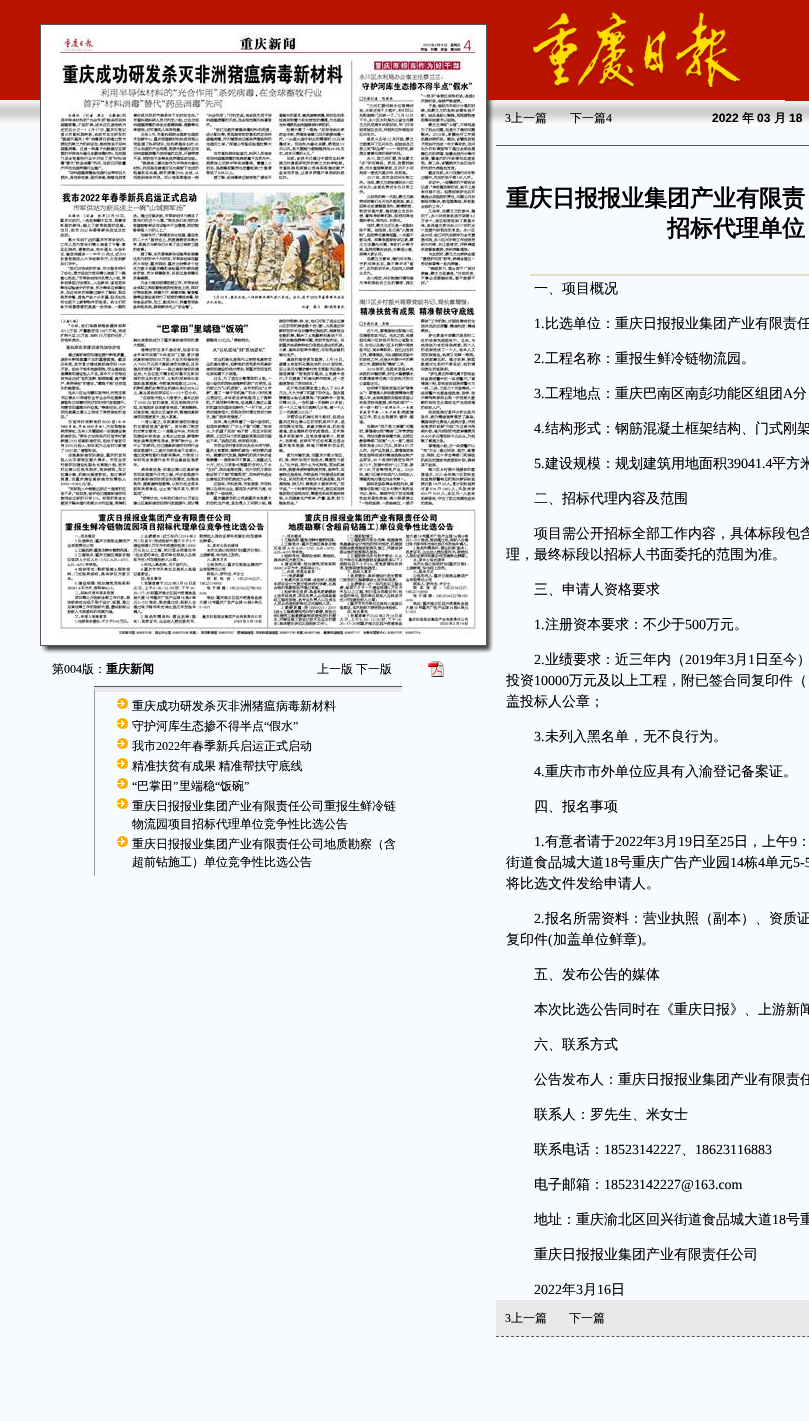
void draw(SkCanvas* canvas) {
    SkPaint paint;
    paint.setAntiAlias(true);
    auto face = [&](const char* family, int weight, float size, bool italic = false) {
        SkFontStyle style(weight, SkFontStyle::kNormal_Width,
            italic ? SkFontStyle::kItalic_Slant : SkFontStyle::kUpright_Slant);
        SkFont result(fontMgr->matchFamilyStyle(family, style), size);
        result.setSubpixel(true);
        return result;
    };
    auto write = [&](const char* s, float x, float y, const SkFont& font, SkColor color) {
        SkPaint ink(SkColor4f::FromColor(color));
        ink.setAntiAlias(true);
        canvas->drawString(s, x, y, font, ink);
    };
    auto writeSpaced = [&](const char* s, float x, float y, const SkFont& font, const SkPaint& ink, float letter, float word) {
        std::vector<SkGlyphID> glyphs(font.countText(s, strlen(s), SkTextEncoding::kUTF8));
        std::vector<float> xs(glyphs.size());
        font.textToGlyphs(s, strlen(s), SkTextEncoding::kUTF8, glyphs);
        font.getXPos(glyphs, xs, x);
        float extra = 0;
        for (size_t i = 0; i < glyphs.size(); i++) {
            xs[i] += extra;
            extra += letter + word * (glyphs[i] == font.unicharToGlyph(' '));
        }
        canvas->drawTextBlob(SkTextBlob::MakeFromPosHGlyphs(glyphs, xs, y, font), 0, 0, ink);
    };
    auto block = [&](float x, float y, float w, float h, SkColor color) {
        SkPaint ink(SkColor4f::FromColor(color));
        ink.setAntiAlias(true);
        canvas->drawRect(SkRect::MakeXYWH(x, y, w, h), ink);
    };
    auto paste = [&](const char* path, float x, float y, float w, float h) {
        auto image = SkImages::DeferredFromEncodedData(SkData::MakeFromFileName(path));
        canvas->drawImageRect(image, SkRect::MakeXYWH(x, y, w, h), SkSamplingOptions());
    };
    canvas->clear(SkColorSetRGB(247, 250, 255));
    paste("pic1.png", 0, 100, 809, 25);
    block(0, 0, 40, 100, SkColorSetRGB(186, 20, 0));
    block(40, 0, 447, 24, SkColorSetRGB(186, 20, 0));
    paste("pic2.png", 487, 125, 9, 521);
    paste("pic3.png", 487, 0, 9, 125);
    paint.setColor(SK_ColorWHITE);
    canvas->drawRect(SkRect::MakeXYWH(40.5f, 24.5f, 446, 621), paint);
    paint.setStyle(SkPaint::kStroke_Style);
    paint.setStrokeWidth(1);
    paint.setColor(SkColorSetRGB(85, 85, 85));
    canvas->drawRect(SkRect::MakeXYWH(40.5f, 24.5f, 446, 621), paint);
    paste("pic4.png", 59, 35, 417, 600);
    paste("pic5.png", 40, 646, 447, 8);
    paste("pic6.png", 487, 646, 7, 8);
    auto kFont1 = face("WenQuanYi Zen Hei", 500, 12);
    write("第", 52, 673, kFont1, SK_ColorBLACK);
    auto kFont2 = face("Liberation Serif", 400, 12);
    write("004", 64, 673, kFont2, SK_ColorBLACK);
    write("版：", 82, 673, kFont1, SK_ColorBLACK);
    auto kFont3 = face("WenQuanYi Zen Hei", 700, 12);
    write("重庆新闻", 106, 673, kFont3, SK_ColorBLACK);
    write("上一版", 317, 673, kFont1, SK_ColorBLACK);
    write("下一版", 356, 673, kFont1, SK_ColorBLACK);
    paste("pic7.png", 428, 661, 16, 16);
    block(94, 686, 308, 1, SkColorSetRGB(85, 85, 85));
    paint.setStyle(SkPaint::kFill_Style);
    paint.setColor(SkColorSetRGB(232, 232, 232));
    canvas->drawPath(SkPathBuilder().moveTo(94, 687).lineTo(402, 687).lineTo(402, 692).lineTo(95, 692).close().detach(), paint);
    paint.setColor(SkColorSetRGB(153, 153, 153));
    canvas->drawPath(SkPathBuilder().moveTo(94, 876).lineTo(94, 687).lineTo(95, 692).lineTo(95, 876).close().detach(), paint);
    paste("pic8.png", 117, 697, 13, 13);
    write("重庆成功研发杀灭非洲猪瘟病毒新材料", 132, 710, kFont1, SK_ColorBLACK);
    paste("pic8.png", 117, 717, 13, 13);
    write("守护河库生态掺不得半点", 132, 730, kFont1, SK_ColorBLACK);
    write("“", 264, 730, kFont2, SK_ColorBLACK);
    write("假水", 269, 730, kFont1, SK_ColorBLACK);
    write("”", 293, 730, kFont2, SK_ColorBLACK);
    paste("pic8.png", 117, 737, 13, 13);
    write("我市", 132, 750, kFont1, SK_ColorBLACK);
    write("2022", 156, 750, kFont2, SK_ColorBLACK);
    write("年春季新兵启运正式启动", 180, 750, kFont1, SK_ColorBLACK);
    paste("pic8.png", 117, 757, 13, 13);
    paint.setColor(SK_ColorBLACK);
    writeSpaced("精准扶贫有成果 精准帮扶守底线", 132, 770, kFont1, paint, 0, -1);
    paste("pic8.png", 117, 777, 13, 13);
    write("“", 132, 790, kFont2, SK_ColorBLACK);
    write("巴掌田", 137, 790, kFont1, SK_ColorBLACK);
    write("”", 173, 790, kFont2, SK_ColorBLACK);
    write("里端稳", 179, 790, kFont1, SK_ColorBLACK);
    write("“", 215, 790, kFont2, SK_ColorBLACK);
    write("饭碗", 220, 790, kFont1, SK_ColorBLACK);
    write("”", 244, 790, kFont2, SK_ColorBLACK);
    paste("pic8.png", 117, 797, 13, 13);
    write("重庆日报报业集团产业有限责任公司重报生鲜冷链", 132, 810, kFont1, SK_ColorBLACK);
    write("物流园项目招标代理单位竞争性比选公告", 132, 828, kFont1, SK_ColorBLACK);
    paste("pic8.png", 117, 835, 13, 13);
    write("重庆日报报业集团产业有限责任公司地质勘察（含", 132, 848, kFont1, SK_ColorBLACK);
    write("超前钻施工）单位竞争性比选公告", 132, 866, kFont1, SK_ColorBLACK);
    paste("pic9.png", 496, 0, 289, 100);
    block(785, 0, 24, 101, SkColorSetRGB(186, 20, 0));
    block(496, 145, 313, 1, SkColorSetRGB(85, 85, 85));
    write("3", 505, 122, kFont2, SK_ColorBLACK);
    write("上一篇", 511, 122, kFont1, SK_ColorBLACK);
    write("下一篇", 570, 122, kFont1, SK_ColorBLACK);
    write("4", 606, 122, kFont2, SK_ColorBLACK);
    auto kFont4 = face("Liberation Sans", 700, 12);
    write("2022", 712, 122, kFont4, SK_ColorBLACK);
    write("年", 742, 122, kFont3, SK_ColorBLACK);
    write("03", 757, 122, kFont4, SK_ColorBLACK);
    write("月", 774, 122, kFont3, SK_ColorBLACK);
    write("18", 789, 122, kFont4, SK_ColorBLACK);
    auto kFont5 = face("WenQuanYi Zen Hei", 700, 23);
    write("重庆日报报业集团产业有限责", 506, 206, kFont5, SK_ColorBLACK);
    write("招标代理单位", 667, 236, kFont5, SK_ColorBLACK);
    block(530, 274, 279, 2, SkColorSetRGB(224, 224, 201));
    auto kFont6 = face("WenQuanYi Zen Hei", 500, 14);
    write("一、项目概况", 534, 293, kFont6, SK_ColorBLACK);
    auto kFont7 = face("Liberation Serif", 400, 14);
    write("1.", 534, 328, kFont7, SK_ColorBLACK);
    write("比选单位：重庆日报报业集团产业有限责任", 545, 328, kFont6, SK_ColorBLACK);
    write("2.", 534, 363, kFont7, SK_ColorBLACK);
    write("工程名称：重报生鲜冷链物流园。", 545, 363, kFont6, SK_ColorBLACK);
    write("3.", 534, 398, kFont7, SK_ColorBLACK);
    write("工程地点：重庆巴南区南彭功能区组团", 545, 398, kFont6, SK_ColorBLACK);
    write("A", 783, 398, kFont7, SK_ColorBLACK);
    write("分", 793, 398, kFont6, SK_ColorBLACK);
    write("4.", 534, 433, kFont7, SK_ColorBLACK);
    write("结构形式：钢筋混凝土框架结构、门式刚架", 545, 433, kFont6, SK_ColorBLACK);
    write("5.", 534, 468, kFont7, SK_ColorBLACK);
    write("建设规模：规划建筑用地面积", 545, 468, kFont6, SK_ColorBLACK);
    write("39041.4", 727, 468, kFont7, SK_ColorBLACK);
    write("平方米", 772, 468, kFont6, SK_ColorBLACK);
    write("二、招标代理内容及范围", 534, 503, kFont6, SK_ColorBLACK);
    write("项目需公开招标全部工作内容，具体标段包含", 534, 538, kFont6, SK_ColorBLACK);
    write("理，最终标段以招标人书面委托的范围为准。", 506, 559, kFont6, SK_ColorBLACK);
    write("三、申请人资格要求", 534, 594, kFont6, SK_ColorBLACK);
    write("1.", 534, 629, kFont7, SK_ColorBLACK);
    write("注册资本要求：不少于", 545, 629, kFont6, SK_ColorBLACK);
    write("500", 685, 629, kFont7, SK_ColorBLACK);
    write("万元。", 706, 629, kFont6, SK_ColorBLACK);
    write("2.", 534, 664, kFont7, SK_ColorBLACK);
    write("业绩要求：近三年内（", 545, 664, kFont6, SK_ColorBLACK);
    write("2019", 685, 664, kFont7, SK_ColorBLACK);
    write("年", 713, 664, kFont6, SK_ColorBLACK);
    write("3", 727, 664, kFont7, SK_ColorBLACK);
    write("月", 734, 664, kFont6, SK_ColorBLACK);
    write("1", 748, 664, kFont7, SK_ColorBLACK);
    write("日至今）", 755, 664, kFont6, SK_ColorBLACK);
    write("投资", 506, 685, kFont6, SK_ColorBLACK);
    write("10000", 534, 685, kFont7, SK_ColorBLACK);
    write("万元及以上工程，附已签合同复印件（", 569, 685, kFont6, SK_ColorBLACK);
    write("盖投标人公章；", 506, 706, kFont6, SK_ColorBLACK);
    write("3.", 534, 741, kFont7, SK_ColorBLACK);
    write("未列入黑名单，无不良行为。", 545, 741, kFont6, SK_ColorBLACK);
    write("4.", 534, 776, kFont7, SK_ColorBLACK);
    write("重庆市市外单位应具有入渝登记备案证。", 545, 776, kFont6, SK_ColorBLACK);
    write("四、报名事项", 534, 811, kFont6, SK_ColorBLACK);
    write("1.", 534, 846, kFont7, SK_ColorBLACK);
    write("有意者请于", 545, 846, kFont6, SK_ColorBLACK);
    write("2022", 615, 846, kFont7, SK_ColorBLACK);
    write("年", 643, 846, kFont6, SK_ColorBLACK);
    write("3", 657, 846, kFont7, SK_ColorBLACK);
    write("月", 664, 846, kFont6, SK_ColorBLACK);
    write("19", 678, 846, kFont7, SK_ColorBLACK);
    write("日至", 692, 846, kFont6, SK_ColorBLACK);
    write("25", 720, 846, kFont7, SK_ColorBLACK);
    write("日，上午", 734, 846, kFont6, SK_ColorBLACK);
    write("9", 790, 846, kFont7, SK_ColorBLACK);
    write("：", 797, 846, kFont6, SK_ColorBLACK);
    write("街道食品城大道", 506, 867, kFont6, SK_ColorBLACK);
    write("18", 604, 867, kFont7, SK_ColorBLACK);
    write("号重庆广告产业园", 618, 867, kFont6, SK_ColorBLACK);
    write("14", 730, 867, kFont7, SK_ColorBLACK);
    write("栋", 744, 867, kFont6, SK_ColorBLACK);
    write("4", 758, 867, kFont7, SK_ColorBLACK);
    write("单元", 765, 867, kFont6, SK_ColorBLACK);
    write("5-5", 793, 867, kFont7, SK_ColorBLACK);
    write("将比选文件发给申请人。", 506, 888, kFont6, SK_ColorBLACK);
    write("2.", 534, 923, kFont7, SK_ColorBLACK);
    write("报名所需资料：营业执照（副本）、资质证", 545, 923, kFont6, SK_ColorBLACK);
    write("复印件", 506, 944, kFont6, SK_ColorBLACK);
    write("(", 548, 944, kFont7, SK_ColorBLACK);
    write("加盖单位鲜章", 553, 944, kFont6, SK_ColorBLACK);
    write(")", 637, 944, kFont7, SK_ColorBLACK);
    write("。", 641, 944, kFont6, SK_ColorBLACK);
    write("五、发布公告的媒体", 534, 979, kFont6, SK_ColorBLACK);
    write("本次比选公告同时在《重庆日报》、上游新闻", 534, 1014, kFont6, SK_ColorBLACK);
    write("六、联系方式", 534, 1049, kFont6, SK_ColorBLACK);
    write("公告发布人：重庆日报报业集团产业有限责任", 534, 1084, kFont6, SK_ColorBLACK);
    write("联系人：罗先生、米女士", 534, 1119, kFont6, SK_ColorBLACK);
    write("联系电话：", 534, 1154, kFont6, SK_ColorBLACK);
    write("18523142227", 604, 1154, kFont7, SK_ColorBLACK);
    write("、", 681, 1154, kFont6, SK_ColorBLACK);
    write("18623116883", 695, 1154, kFont7, SK_ColorBLACK);
    write("电子邮箱：", 534, 1189, kFont6, SK_ColorBLACK);
    write("18523142227@163.com", 604, 1189, kFont7, SK_ColorBLACK);
    write("地址：重庆渝北区回兴街道食品城大道", 534, 1224, kFont6, SK_ColorBLACK);
    write("18", 772, 1224, kFont7, SK_ColorBLACK);
    write("号重", 786, 1224, kFont6, SK_ColorBLACK);
    write("重庆日报报业集团产业有限责任公司", 534, 1259, kFont6, SK_ColorBLACK);
    write("2022", 534, 1294, kFont7, SK_ColorBLACK);
    write("年", 562, 1294, kFont6, SK_ColorBLACK);
    write("3", 576, 1294, kFont7, SK_ColorBLACK);
    write("月", 583, 1294, kFont6, SK_ColorBLACK);
    write("16", 597, 1294, kFont7, SK_ColorBLACK);
    write("日", 611, 1294, kFont6, SK_ColorBLACK);
    paint.setStyle(SkPaint::kStroke_Style);
    paint.setColor(SkColorSetRGB(85, 85, 85));
    paint.setPathEffect(SkDashPathEffect::Make({{3, 2.02f}}, 0));
    canvas->drawPath(SkPathBuilder().moveTo(496, 1336.5f).lineTo(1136, 1336.5f).detach(), paint);
    paint.setPathEffect(nullptr);
    block(496, 1300, 313, 36, SkColorSetRGB(232, 232, 232));
    write("3", 505, 1322, kFont2, SK_ColorBLACK);
    write("上一篇", 511, 1322, kFont1, SK_ColorBLACK);
    write("下一篇", 569, 1322, kFont1, SK_ColorBLACK);
}
